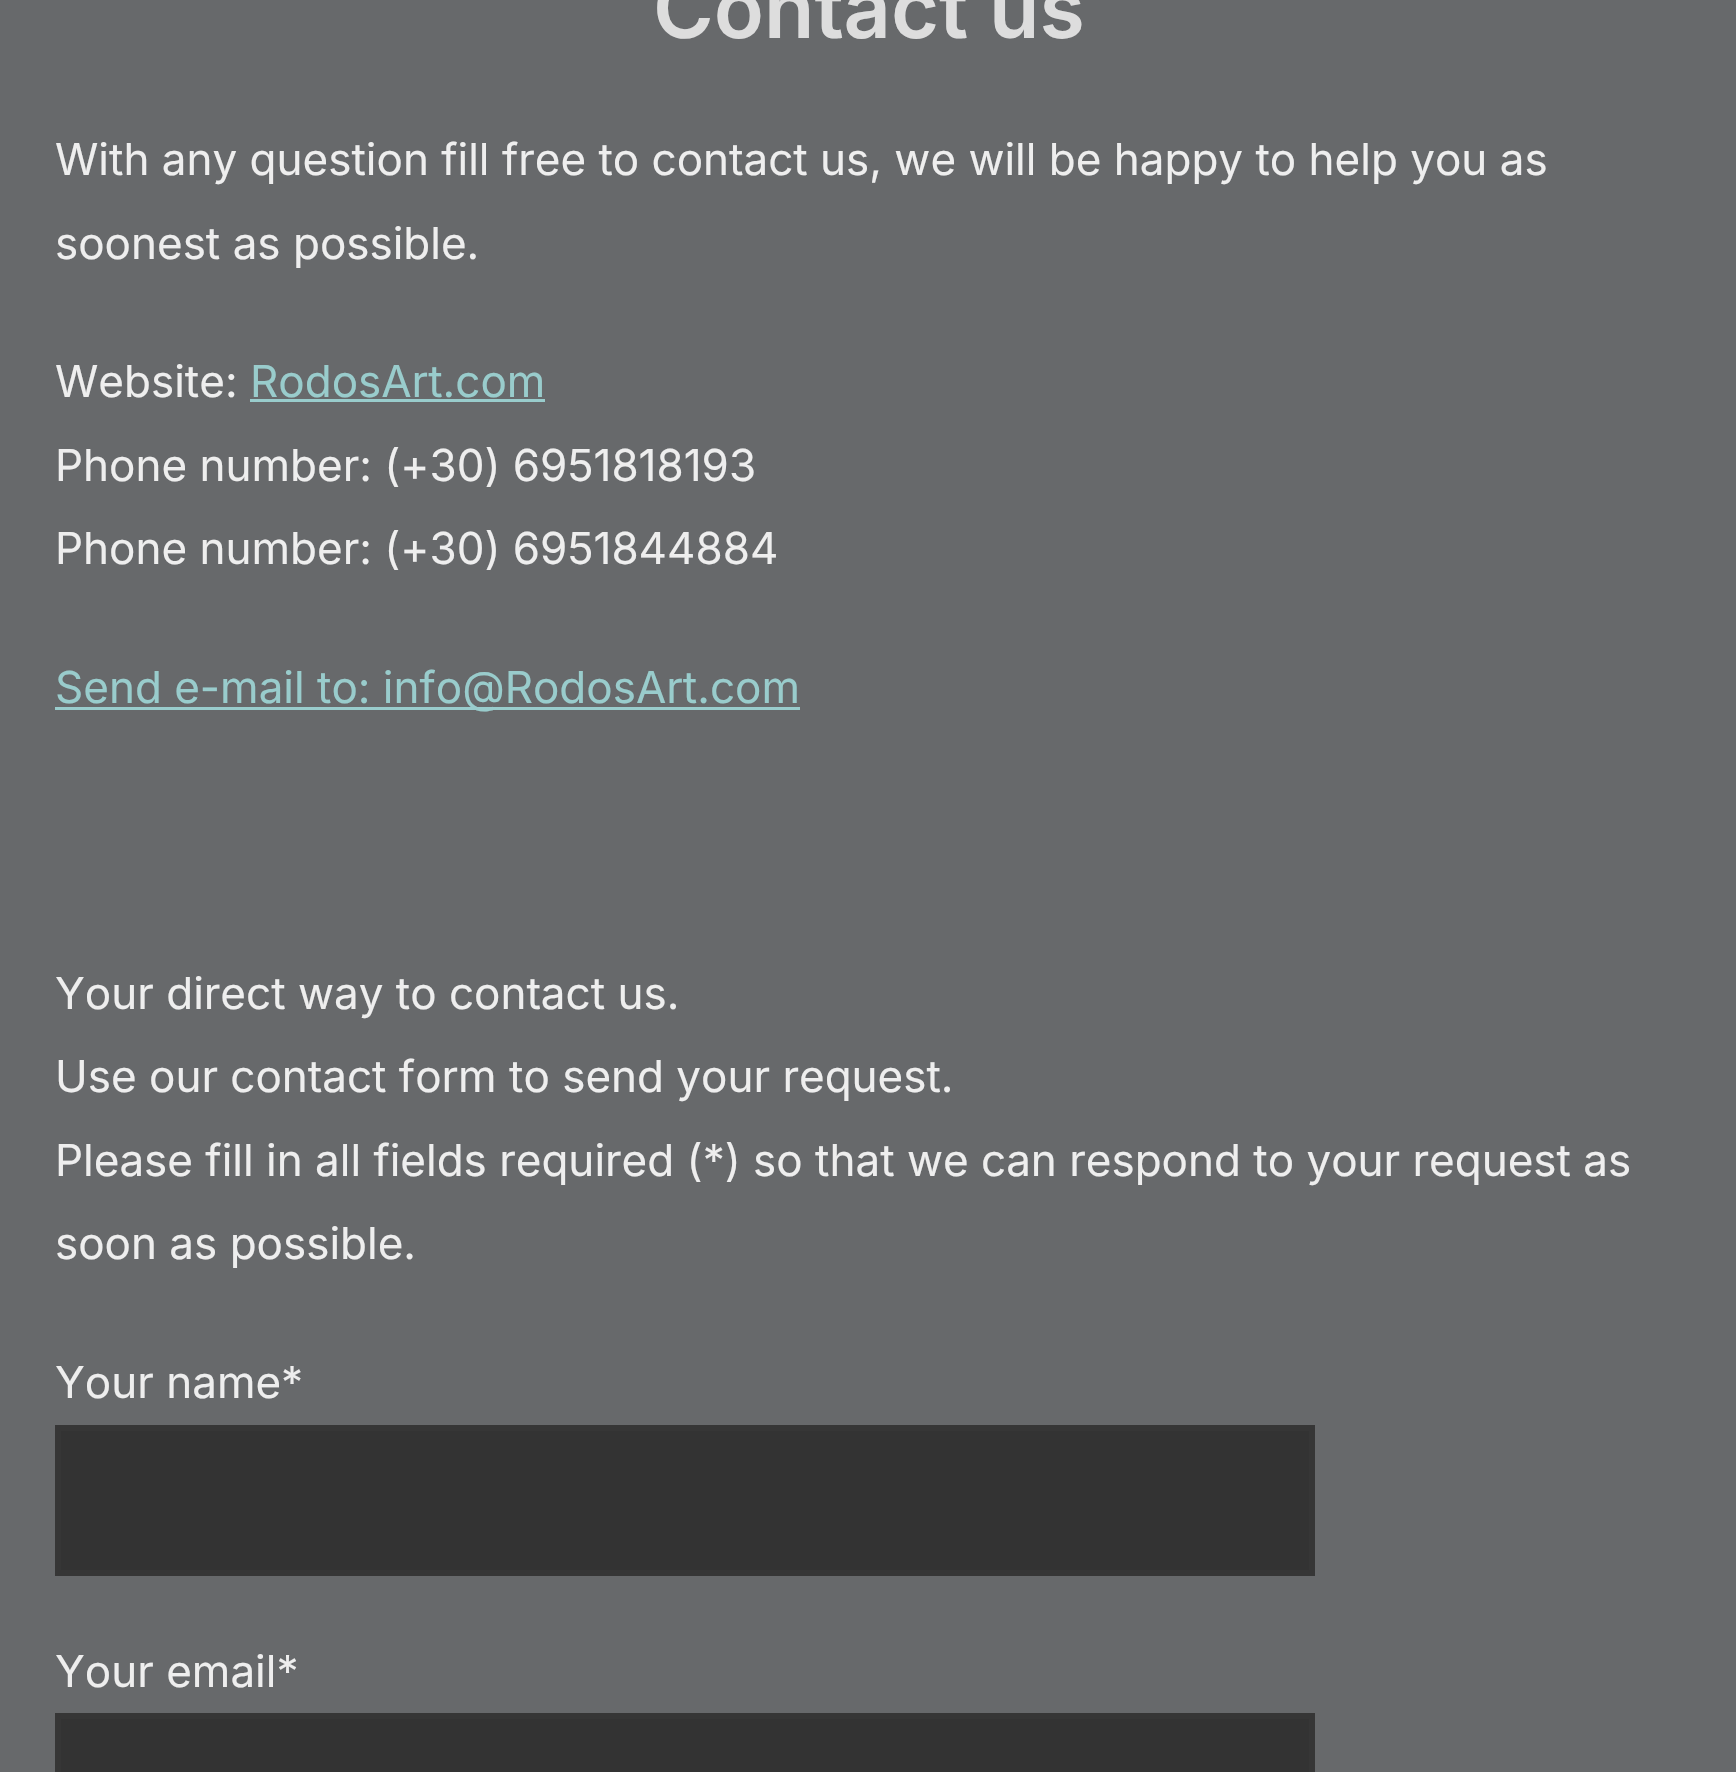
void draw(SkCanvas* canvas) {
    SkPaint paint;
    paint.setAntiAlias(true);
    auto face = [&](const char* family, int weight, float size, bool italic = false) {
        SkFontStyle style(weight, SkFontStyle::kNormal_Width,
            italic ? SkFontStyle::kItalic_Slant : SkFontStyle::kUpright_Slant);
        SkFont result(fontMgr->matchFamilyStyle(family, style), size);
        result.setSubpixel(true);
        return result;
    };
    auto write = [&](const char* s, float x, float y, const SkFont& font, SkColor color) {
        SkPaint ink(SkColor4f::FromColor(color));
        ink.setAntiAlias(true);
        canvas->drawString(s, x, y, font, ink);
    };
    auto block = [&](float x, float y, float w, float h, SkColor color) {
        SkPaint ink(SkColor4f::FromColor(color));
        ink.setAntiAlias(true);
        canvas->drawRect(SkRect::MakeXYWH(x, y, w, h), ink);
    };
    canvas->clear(SkColorSetRGB(103, 105, 107));
    auto kFont1 = face("Inter", 600, 82.5f);
    write("Contact us", 653, 38, kFont1, SkColorSetRGB(221, 221, 221));
    auto kFont2 = face("Inter", 400, 44);
    write("With any question fill free to contact us, we will be happy to help you as", 55, 175, kFont2, SkColorSetRGB(238, 238, 238));
    write("soonest as possible.", 55, 259, kFont2, SkColorSetRGB(238, 238, 238));
    write("Website:", 55, 397, kFont2, SkColorSetRGB(238, 238, 238));
    write("RodosArt.com", 250, 397, kFont2, SkColorSetRGB(153, 204, 204));
    block(250, 399, 295, 3, SkColorSetRGB(153, 204, 204));
    write("Phone number: (+30) 6951818193", 55, 481, kFont2, SkColorSetRGB(238, 238, 238));
    write("Phone number: (+30) 6951844884", 55, 564, kFont2, SkColorSetRGB(238, 238, 238));
    block(55, 707, 745, 3, SkColorSetRGB(153, 204, 204));
    write("Send e-mail to: info@RodosArt.com", 55, 703, kFont2, SkColorSetRGB(153, 204, 204));
    write("Your direct way to contact us.", 55, 1009, kFont2, SkColorSetRGB(238, 238, 238));
    write("Use our contact form to send your request.", 55, 1092, kFont2, SkColorSetRGB(238, 238, 238));
    write("Please fill in all fields required (*) so that we can respond to your request as", 55, 1176, kFont2, SkColorSetRGB(238, 238, 238));
    write("soon as possible.", 55, 1259, kFont2, SkColorSetRGB(238, 238, 238));
    write("Your name*", 55, 1398, kFont2, SkColorSetRGB(238, 238, 238));
    paint.setColor(SkColorSetRGB(51, 51, 51));
    canvas->drawRect(SkRect::MakeXYWH(58, 1428, 1254, 145), paint);
    paint.setStyle(SkPaint::kStroke_Style);
    paint.setStrokeWidth(6);
    paint.setColor(SkColorSetRGB(54, 54, 54));
    canvas->drawRect(SkRect::MakeXYWH(58, 1428, 1254, 145), paint);
    write("Your email*", 55, 1687, kFont2, SkColorSetRGB(238, 238, 238));
    paint.setStyle(SkPaint::kFill_Style);
    paint.setColor(SkColorSetRGB(51, 51, 51));
    canvas->drawRect(SkRect::MakeXYWH(58, 1716, 1254, 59), paint);
    paint.setStyle(SkPaint::kStroke_Style);
    paint.setColor(SkColorSetRGB(54, 54, 54));
    canvas->drawRect(SkRect::MakeXYWH(58, 1716, 1254, 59), paint);
}
